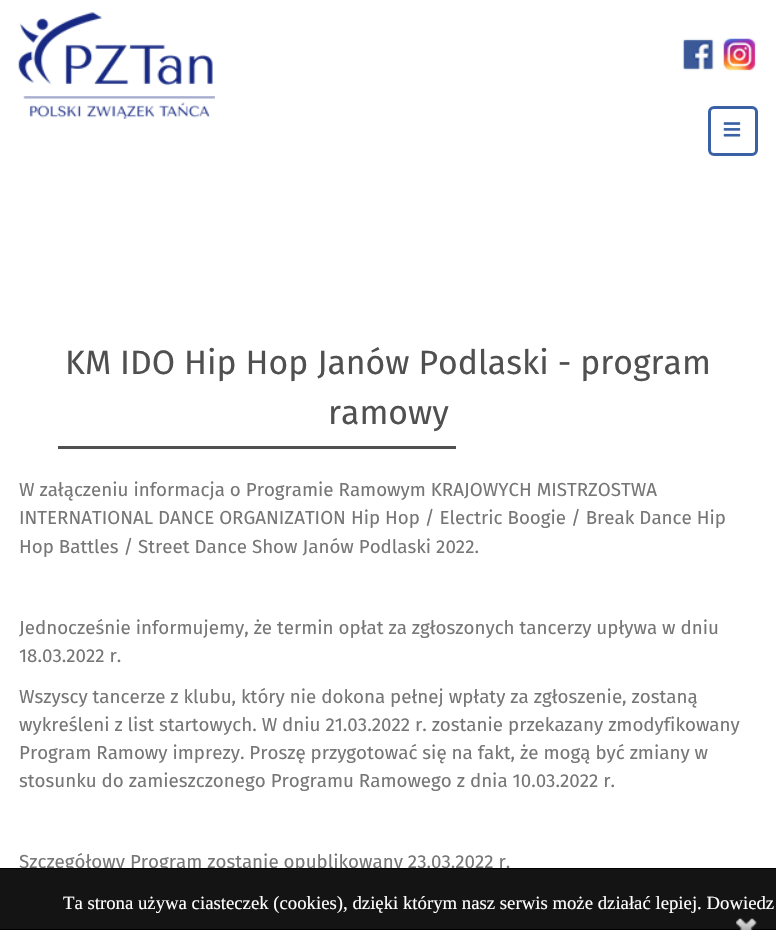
void draw(SkCanvas* canvas) {
    SkPaint paint;
    paint.setAntiAlias(true);
    auto face = [&](const char* family, int weight, float size, bool italic = false) {
        SkFontStyle style(weight, SkFontStyle::kNormal_Width,
            italic ? SkFontStyle::kItalic_Slant : SkFontStyle::kUpright_Slant);
        SkFont result(fontMgr->matchFamilyStyle(family, style), size);
        result.setSubpixel(true);
        return result;
    };
    auto write = [&](const char* s, float x, float y, const SkFont& font, SkColor color) {
        SkPaint ink(SkColor4f::FromColor(color));
        ink.setAntiAlias(true);
        canvas->drawString(s, x, y, font, ink);
    };
    auto block = [&](float x, float y, float w, float h, SkColor color) {
        SkPaint ink(SkColor4f::FromColor(color));
        ink.setAntiAlias(true);
        canvas->drawRect(SkRect::MakeXYWH(x, y, w, h), ink);
    };
    auto paste = [&](const char* path, float x, float y, float w, float h) {
        auto image = SkImages::DeferredFromEncodedData(SkData::MakeFromFileName(path));
        canvas->drawImageRect(image, SkRect::MakeXYWH(x, y, w, h), SkSamplingOptions());
    };
    canvas->clear(SK_ColorWHITE);
    paste("pic1.png", 18, 12, 197, 107);
    paste("pic2.png", 682, 38, 32, 33);
    paste("pic3.png", 722, 38, 34, 33);
    paint.setStyle(SkPaint::kStroke_Style);
    paint.setStrokeWidth(3);
    paint.setColor(SkColorSetRGB(57, 97, 164));
    canvas->drawRoundRect(SkRect::MakeXYWH(709.5f, 107.5f, 47, 47), 4.5f, 4.5f, paint);
    paste("pic4.png", 723, 122, 18, 15);
    auto kFont1 = face("Fira Sans", 400, 33.75f);
    write("KM IDO Hip Hop Janów Podlaski - program", 65, 374, kFont1, SkColorSetRGB(80, 80, 80));
    write("ramowy", 328, 424, kFont1, SkColorSetRGB(80, 80, 80));
    block(58, 446, 398, 3, SkColorSetRGB(80, 80, 80));
    auto kFont2 = face("Fira Sans", 400, 18.75f);
    write("W załączeniu informacja o Programie Ramowym KRAJOWYCH MISTRZOSTWA", 19, 496, kFont2, SkColorSetRGB(118, 118, 118));
    write("INTERNATIONAL DANCE ORGANIZATION Hip Hop / Electric Boogie / Break Dance Hip", 19, 524, kFont2, SkColorSetRGB(118, 118, 118));
    write("Hop Battles / Street Dance Show Janów Podlaski 2022.", 19, 553, kFont2, SkColorSetRGB(118, 118, 118));
    write("Jednocześnie informujemy, że termin opłat za zgłoszonych tancerzy upływa w dniu", 19, 634, kFont2, SkColorSetRGB(118, 118, 118));
    write("18.03.2022 r.", 19, 662, kFont2, SkColorSetRGB(118, 118, 118));
    write("Wszyscy tancerze z klubu, który nie dokona pełnej wpłaty za zgłoszenie, zostaną", 19, 703, kFont2, SkColorSetRGB(118, 118, 118));
    write("wykreśleni z list startowych. W dniu 21.03.2022 r. zostanie przekazany zmodyfikowany", 19, 731, kFont2, SkColorSetRGB(118, 118, 118));
    write("Program Ramowy imprezy. Proszę przygotować się na fakt, że mogą być zmiany w", 19, 759, kFont2, SkColorSetRGB(118, 118, 118));
    write("stosunku do zamieszczonego Programu Ramowego z dnia 10.03.2022 r.", 19, 787, kFont2, SkColorSetRGB(118, 118, 118));
    write("Szczegółowy Program zostanie opublikowany 23.03.2022 r.", 19, 868, kFont2, SkColorSetRGB(118, 118, 118));
    block(0, 869, 776, 60, SkColorSetRGB(20, 20, 20));
    block(0, 868, 776, 1, SK_ColorBLACK);
    block(0, 929, 776, 1, SK_ColorBLACK);
    auto kFont3 = face("Liberation Serif", 400, 18.75f);
    write("Ta strona używa ciasteczek (cookies), dzięki którym nasz serwis może działać lepiej. Dowiedz", 63, 909, kFont3, SK_ColorWHITE);
    paste("pic5.png", 736, 918, 21, 12);
}
